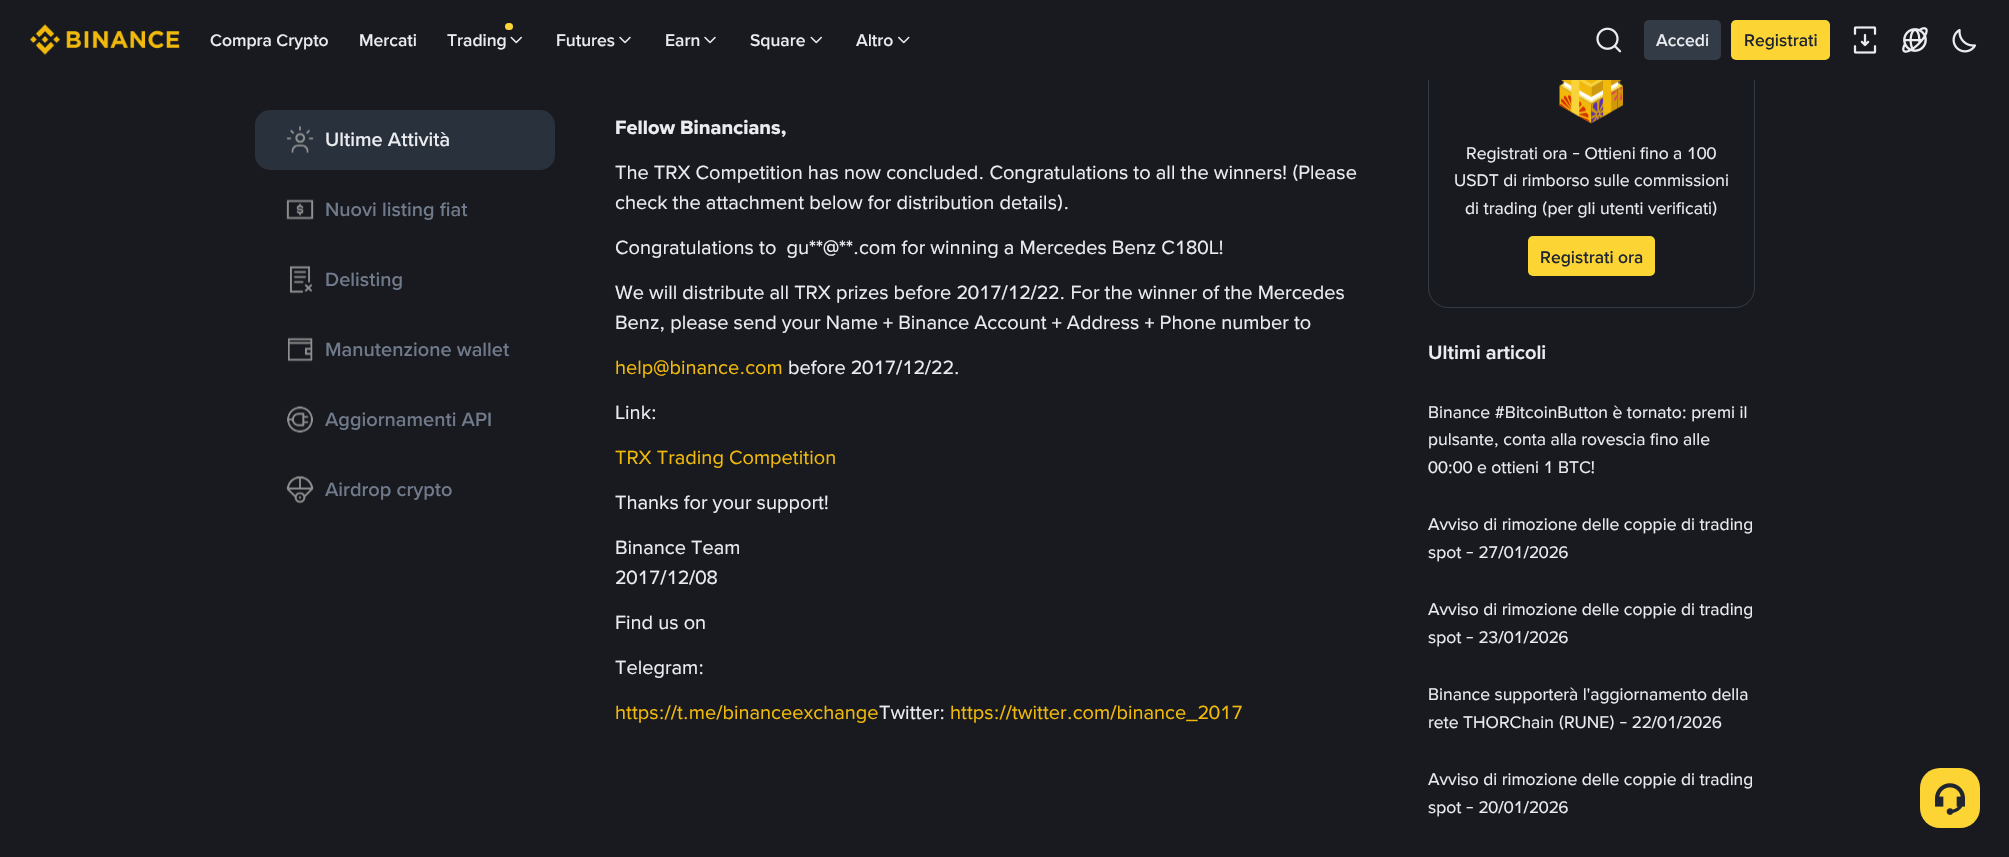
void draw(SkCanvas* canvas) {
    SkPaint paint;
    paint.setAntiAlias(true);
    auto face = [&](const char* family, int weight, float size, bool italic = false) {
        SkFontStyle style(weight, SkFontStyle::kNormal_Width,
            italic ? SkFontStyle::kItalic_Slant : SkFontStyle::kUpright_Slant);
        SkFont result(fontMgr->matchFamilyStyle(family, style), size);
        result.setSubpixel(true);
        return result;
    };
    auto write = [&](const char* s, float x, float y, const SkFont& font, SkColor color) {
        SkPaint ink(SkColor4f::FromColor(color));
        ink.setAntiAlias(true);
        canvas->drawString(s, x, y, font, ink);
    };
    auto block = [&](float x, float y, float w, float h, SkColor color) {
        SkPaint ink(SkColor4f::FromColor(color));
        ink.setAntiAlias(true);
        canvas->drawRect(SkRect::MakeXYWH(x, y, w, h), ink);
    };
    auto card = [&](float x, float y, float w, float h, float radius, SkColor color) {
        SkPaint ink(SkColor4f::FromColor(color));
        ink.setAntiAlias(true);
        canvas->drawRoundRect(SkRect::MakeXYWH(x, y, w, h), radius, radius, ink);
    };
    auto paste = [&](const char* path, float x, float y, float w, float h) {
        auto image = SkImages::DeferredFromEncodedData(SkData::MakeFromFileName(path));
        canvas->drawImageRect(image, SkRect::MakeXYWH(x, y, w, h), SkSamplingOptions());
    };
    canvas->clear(SkColorSetRGB(24, 26, 32));
    paint.setStyle(SkPaint::kStroke_Style);
    paint.setStrokeWidth(1);
    paint.setColor(SkColorSetRGB(51, 59, 71));
    canvas->drawRoundRect(SkRect::MakeXYWH(1428.5f, 20.5f, 326, 287), 19.5f, 19.5f, paint);
    block(1428, 20, 327, 60, SkColorSetRGB(24, 26, 32));
    paste("pic1.png", 30, 24, 150, 31);
    auto kFont1 = face("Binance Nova", 500, 17.5f);
    write("Compra Crypto", 210, 46, kFont1, SkColorSetRGB(234, 236, 239));
    write("Mercati", 359, 46, kFont1, SkColorSetRGB(234, 236, 239));
    card(505, 23, 8, 7, 3.5f, SkColorSetRGB(252, 213, 53));
    write("Trading", 447, 46, kFont1, SkColorSetRGB(234, 236, 239));
    paste("pic2.png", 510, 36, 12, 8);
    write("Futures", 556, 46, kFont1, SkColorSetRGB(234, 236, 239));
    paste("pic3.png", 619, 36, 12, 8);
    write("Earn", 665, 46, kFont1, SkColorSetRGB(234, 236, 239));
    paste("pic3.png", 704, 36, 12, 8);
    write("Square", 750, 46, kFont1, SkColorSetRGB(234, 236, 239));
    paste("pic2.png", 810, 36, 12, 8);
    write("Altro", 856, 46, kFont1, SkColorSetRGB(234, 236, 239));
    paste("pic4.png", 898, 36, 12, 8);
    paste("pic5.png", 1596, 27, 26, 26);
    card(1644, 20, 77, 40, 5, SkColorSetRGB(51, 59, 71));
    write("Accedi", 1656, 46, kFont1, SkColorSetRGB(234, 236, 239));
    card(1731, 20, 99, 40, 5, SkColorSetRGB(252, 213, 53));
    write("Registrati", 1744, 46, kFont1, SkColorSetRGB(32, 38, 48));
    paste("pic6.png", 1853, 26, 24, 28);
    paste("pic7.png", 1902, 27, 26, 26);
    paste("pic8.png", 1952, 28, 25, 25);
    card(255, 110, 300, 60, 15, SkColorSetRGB(41, 49, 61));
    paste("pic9.png", 286, 125, 28, 29);
    auto kFont2 = face("Binance Nova", 500, 20);
    write("Ultime Attività", 325, 146, kFont2, SkColorSetRGB(234, 236, 239));
    paste("pic10.png", 286, 199, 28, 21);
    write("Nuovi listing fiat", 325, 216, kFont2, SkColorSetRGB(112, 122, 138));
    paste("pic11.png", 290, 265, 22, 29);
    write("Delisting", 325, 286, kFont2, SkColorSetRGB(112, 122, 138));
    paste("pic12.png", 288, 337, 25, 25);
    write("Manutenzione wallet", 325, 356, kFont2, SkColorSetRGB(112, 122, 138));
    paste("pic13.png", 287, 406, 26, 27);
    write("Aggiornamenti API", 325, 426, kFont2, SkColorSetRGB(112, 122, 138));
    paste("pic14.png", 286, 475, 28, 29);
    write("Airdrop crypto", 325, 496, kFont2, SkColorSetRGB(112, 122, 138));
    auto kFont3 = face("Binance Nova", 700, 20);
    write("Fellow Binancians,", 615, 134, kFont3, SkColorSetRGB(234, 236, 239));
    auto kFont4 = face("Binance Nova", 400, 20);
    write("The TRX Competition has now concluded. Congratulations to all the winners! (Please", 615, 179, kFont4, SkColorSetRGB(234, 236, 239));
    write("check the attachment below for distribution details).", 615, 209, kFont4, SkColorSetRGB(234, 236, 239));
    write("Congratulations to  gu**@**.com for winning a Mercedes Benz C180L!", 615, 254, kFont4, SkColorSetRGB(234, 236, 239));
    write("We will distribute all TRX prizes before 2017/12/22. For the winner of the Mercedes", 615, 299, kFont4, SkColorSetRGB(234, 236, 239));
    write("Benz, please send your Name + Binance Account + Address + Phone number to", 615, 329, kFont4, SkColorSetRGB(234, 236, 239));
    write("help@binance.com", 615, 374, kFont4, SkColorSetRGB(240, 185, 11));
    write("before 2017/12/22.", 788, 374, kFont4, SkColorSetRGB(234, 236, 239));
    write("Link:", 615, 419, kFont4, SkColorSetRGB(234, 236, 239));
    write("TRX Trading Competition", 615, 464, kFont4, SkColorSetRGB(240, 185, 11));
    write("Thanks for your support!", 615, 509, kFont4, SkColorSetRGB(234, 236, 239));
    write("Binance Team", 615, 554, kFont4, SkColorSetRGB(234, 236, 239));
    write("2017/12/08", 615, 584, kFont4, SkColorSetRGB(234, 236, 239));
    write("Find us on", 615, 629, kFont4, SkColorSetRGB(234, 236, 239));
    write("Telegram:", 615, 674, kFont4, SkColorSetRGB(234, 236, 239));
    write("https://t.me/binanceexchange", 615, 719, kFont4, SkColorSetRGB(240, 185, 11));
    write("Twitter:", 879, 719, kFont4, SkColorSetRGB(234, 236, 239));
    write("https://twitter.com/binance_2017", 950, 719, kFont4, SkColorSetRGB(240, 185, 11));
    paste("pic15.png", 1559, 80, 64, 44);
    auto kFont5 = face("Binance Nova", 400, 17.5f);
    write("Registrati ora - Ottieni fino a 100", 1466, 159, kFont5, SkColorSetRGB(234, 236, 239));
    write("USDT di rimborso sulle commissioni", 1454, 186, kFont5, SkColorSetRGB(234, 236, 239));
    write("di trading (per gli utenti verificati)", 1465, 214, kFont5, SkColorSetRGB(234, 236, 239));
    card(1528, 236, 127, 40, 5, SkColorSetRGB(252, 213, 53));
    write("Registrati ora", 1540, 263, kFont1, SkColorSetRGB(32, 38, 48));
    auto kFont6 = face("Binance Nova", 600, 20);
    write("Ultimi articoli", 1428, 359, kFont6, SkColorSetRGB(234, 236, 239));
    write("Binance #BitcoinButton è tornato: premi il", 1428, 418, kFont5, SkColorSetRGB(234, 236, 239));
    write("pulsante, conta alla rovescia fino alle", 1428, 445, kFont5, SkColorSetRGB(234, 236, 239));
    write("00:00 e ottieni 1 BTC!", 1428, 473, kFont5, SkColorSetRGB(234, 236, 239));
    write("Avviso di rimozione delle coppie di trading", 1428, 530, kFont5, SkColorSetRGB(234, 236, 239));
    write("spot - 27/01/2026", 1428, 558, kFont5, SkColorSetRGB(234, 236, 239));
    write("Avviso di rimozione delle coppie di trading", 1428, 615, kFont5, SkColorSetRGB(234, 236, 239));
    write("spot - 23/01/2026", 1428, 643, kFont5, SkColorSetRGB(234, 236, 239));
    write("Binance supporterà l'aggiornamento della", 1428, 700, kFont5, SkColorSetRGB(234, 236, 239));
    write("rete THORChain (RUNE) - 22/01/2026", 1428, 728, kFont5, SkColorSetRGB(234, 236, 239));
    write("Avviso di rimozione delle coppie di trading", 1428, 785, kFont5, SkColorSetRGB(234, 236, 239));
    write("spot - 20/01/2026", 1428, 813, kFont5, SkColorSetRGB(234, 236, 239));
    card(1920, 768, 60, 60, 20, SkColorSetRGB(252, 213, 53));
    paste("pic16.png", 1935, 783, 30, 32);
}
